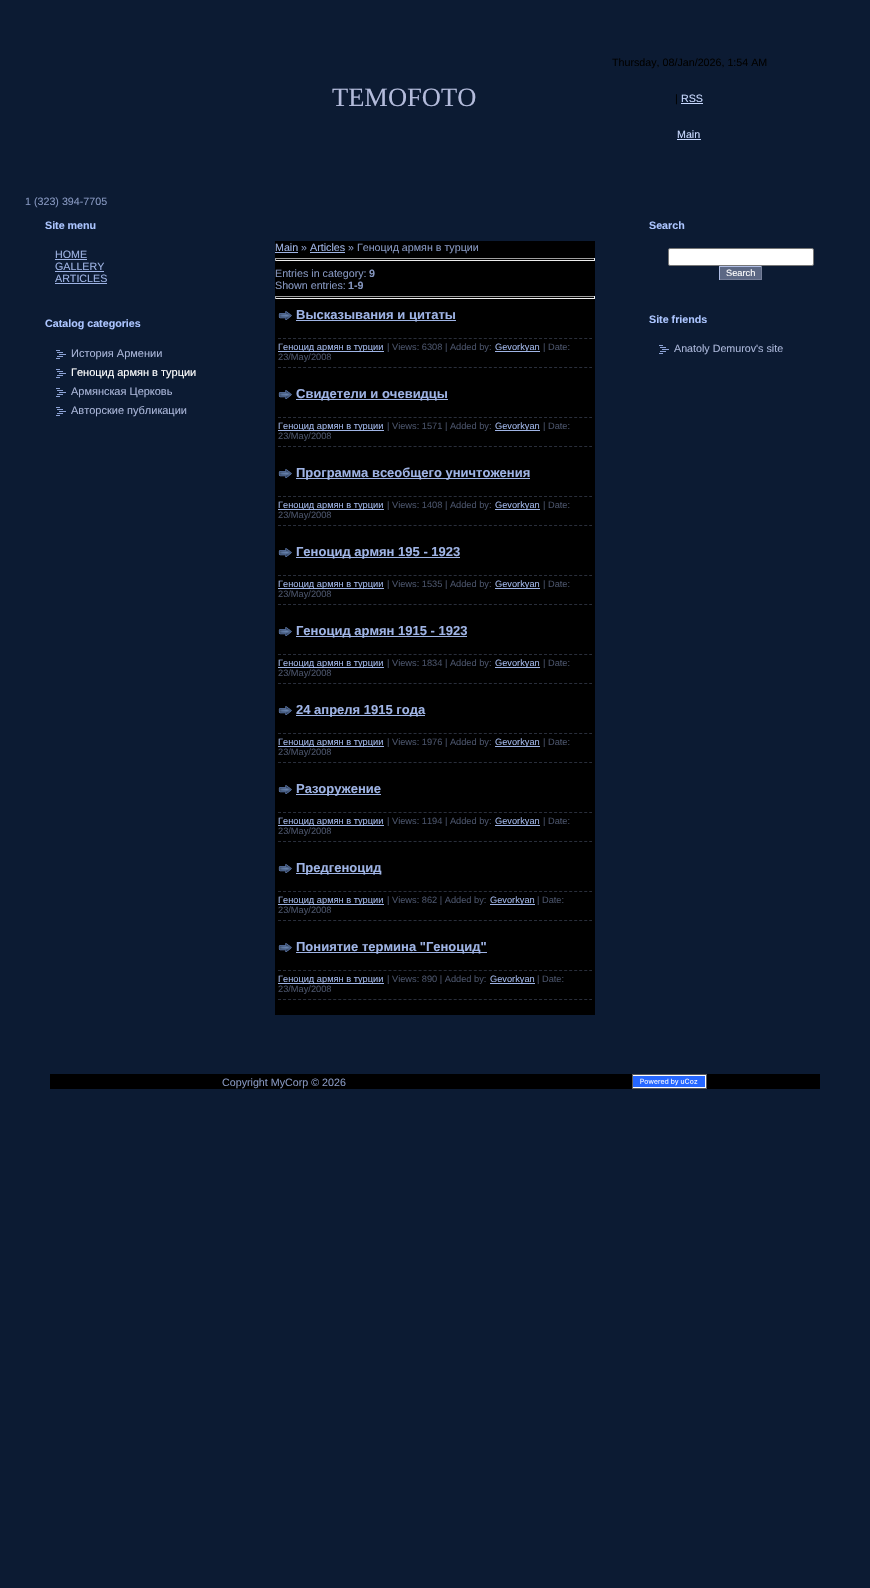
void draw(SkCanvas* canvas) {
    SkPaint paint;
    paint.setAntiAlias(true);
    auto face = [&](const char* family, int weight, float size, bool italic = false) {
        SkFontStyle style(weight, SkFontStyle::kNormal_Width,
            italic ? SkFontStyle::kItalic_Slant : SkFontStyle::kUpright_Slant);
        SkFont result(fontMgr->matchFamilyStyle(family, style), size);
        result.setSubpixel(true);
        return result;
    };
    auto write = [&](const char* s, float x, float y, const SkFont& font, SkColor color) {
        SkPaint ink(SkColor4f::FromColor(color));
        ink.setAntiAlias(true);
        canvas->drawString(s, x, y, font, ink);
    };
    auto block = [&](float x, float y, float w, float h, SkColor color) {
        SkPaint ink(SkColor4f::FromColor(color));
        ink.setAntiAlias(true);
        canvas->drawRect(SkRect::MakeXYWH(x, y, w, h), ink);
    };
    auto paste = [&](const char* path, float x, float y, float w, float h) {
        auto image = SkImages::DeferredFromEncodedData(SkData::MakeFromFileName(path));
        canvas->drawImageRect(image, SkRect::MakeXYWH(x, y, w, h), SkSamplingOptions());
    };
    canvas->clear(SkColorSetRGB(12, 27, 51));
    auto kFont1 = face("Liberation Serif", 400, 26.5f);
    write("TEMOFOTO", 332, 106, kFont1, SkColorSetRGB(179, 187, 219));
    auto kFont2 = face("Liberation Sans", 400, 10.7f);
    write("Thursday, 08/Jan/2026, 1:54 AM", 612, 66, kFont2, SK_ColorBLACK);
    write("|", 675, 102, kFont2, SK_ColorBLACK);
    write("RSS", 681, 102, kFont2, SkColorSetRGB(201, 217, 255));
    block(681, 103, 22, 1, SkColorSetRGB(201, 217, 255));
    write("Main", 677, 138, kFont2, SkColorSetRGB(201, 217, 255));
    block(677, 139, 24, 1, SkColorSetRGB(201, 217, 255));
    write("1 (323) 394-7705", 25, 205, kFont2, SkColorSetRGB(133, 150, 191));
    auto kFont3 = face("Liberation Sans", 700, 10.7f);
    write("Site menu", 45, 229, kFont3, SkColorSetRGB(172, 197, 255));
    write("HOME", 55, 258, kFont2, SkColorSetRGB(159, 180, 229));
    block(55, 259, 32, 1, SkColorSetRGB(159, 180, 229));
    write("GALLERY", 55, 270, kFont2, SkColorSetRGB(159, 180, 229));
    block(55, 271, 49, 1, SkColorSetRGB(159, 180, 229));
    write("ARTICLES", 55, 282, kFont2, SkColorSetRGB(159, 180, 229));
    block(55, 283, 52, 1, SkColorSetRGB(159, 180, 229));
    write("Catalog categories", 45, 327, kFont3, SkColorSetRGB(172, 197, 255));
    paste("pic1.png", 56, 350, 10, 9);
    auto kFont4 = face("Liberation Sans", 400, 11);
    write("История Армении", 71, 357, kFont4, SkColorSetRGB(169, 181, 216));
    paste("pic1.png", 56, 369, 10, 9);
    write("Геноцид армян в турции", 71, 376, kFont4, SK_ColorWHITE);
    paste("pic1.png", 56, 388, 10, 9);
    write("Армянская Церковь", 71, 395, kFont4, SkColorSetRGB(169, 181, 216));
    paste("pic1.png", 56, 407, 10, 9);
    write("Авторские публикации", 71, 414, kFont4, SkColorSetRGB(169, 181, 216));
    block(275, 241, 320, 774, SK_ColorBLACK);
    write("Main", 275, 251, kFont2, SkColorSetRGB(159, 180, 229));
    block(275, 252, 23, 1, SkColorSetRGB(159, 180, 229));
    write("»", 301, 251, kFont2, SkColorSetRGB(133, 150, 191));
    write("Articles", 310, 251, kFont2, SkColorSetRGB(159, 180, 229));
    block(310, 252, 35, 1, SkColorSetRGB(159, 180, 229));
    write("» Геноцид армян в турции", 348, 251, kFont2, SkColorSetRGB(133, 150, 191));
    block(275, 258, 320, 1, SkColorSetRGB(159, 159, 159));
    block(594, 258, 1, 3, SkColorSetRGB(238, 238, 238));
    block(275, 260, 320, 1, SkColorSetRGB(238, 238, 238));
    block(275, 258, 1, 3, SkColorSetRGB(159, 159, 159));
    write("Entries in category:", 275, 277, kFont2, SkColorSetRGB(133, 150, 191));
    write("9", 369, 277, kFont3, SkColorSetRGB(133, 150, 191));
    write("Shown entries:", 275, 289, kFont2, SkColorSetRGB(133, 150, 191));
    write("1-9", 348, 289, kFont3, SkColorSetRGB(133, 150, 191));
    block(275, 296, 320, 1, SkColorSetRGB(159, 159, 159));
    block(594, 296, 1, 3, SkColorSetRGB(238, 238, 238));
    block(275, 298, 320, 1, SkColorSetRGB(238, 238, 238));
    block(275, 296, 1, 3, SkColorSetRGB(159, 159, 159));
    paste("pic2.png", 278, 311, 14, 9);
    block(296, 320, 160, 1, SkColorSetRGB(159, 180, 229));
    auto kFont5 = face("Liberation Sans", 700, 13);
    write("Высказывания и цитаты", 296, 319, kFont5, SkColorSetRGB(159, 180, 229));
    paint.setStyle(SkPaint::kStroke_Style);
    paint.setStrokeWidth(1);
    paint.setColor(SkColorSetRGB(41, 46, 59));
    paint.setPathEffect(SkDashPathEffect::Make({{3, 2.02f}}, 0));
    canvas->drawPath(SkPathBuilder().moveTo(278, 338.5f).lineTo(592, 338.5f).detach(), paint);
    paint.setPathEffect(nullptr);
    paint.setPathEffect(SkDashPathEffect::Make({{3, 2.02f}}, 0));
    canvas->drawPath(SkPathBuilder().moveTo(278, 367.5f).lineTo(592, 367.5f).detach(), paint);
    paint.setPathEffect(nullptr);
    block(278, 351, 106, 1, SkColorSetRGB(159, 180, 229));
    auto kFont6 = face("Liberation Sans", 400, 9.25f);
    write("Геноцид армян в турции", 278, 350, kFont6, SkColorSetRGB(159, 180, 229));
    write("| Views: 6308 | Added by:", 387, 350, kFont6, SkColorSetRGB(72, 81, 103));
    block(495, 351, 45, 1, SkColorSetRGB(159, 180, 229));
    write("Gevorkyan", 495, 350, kFont6, SkColorSetRGB(159, 180, 229));
    write("| Date:", 543, 350, kFont6, SkColorSetRGB(72, 81, 103));
    write("23/May/2008", 278, 360, kFont6, SkColorSetRGB(72, 81, 103));
    paste("pic2.png", 278, 390, 14, 9);
    block(296, 399, 152, 1, SkColorSetRGB(159, 180, 229));
    write("Свидетели и очевидцы", 296, 398, kFont5, SkColorSetRGB(159, 180, 229));
    paint.setPathEffect(SkDashPathEffect::Make({{3, 2.02f}}, 0));
    canvas->drawPath(SkPathBuilder().moveTo(278, 417.5f).lineTo(592, 417.5f).detach(), paint);
    paint.setPathEffect(nullptr);
    paint.setPathEffect(SkDashPathEffect::Make({{3, 2.02f}}, 0));
    canvas->drawPath(SkPathBuilder().moveTo(278, 446.5f).lineTo(592, 446.5f).detach(), paint);
    paint.setPathEffect(nullptr);
    block(278, 430, 106, 1, SkColorSetRGB(159, 180, 229));
    write("Геноцид армян в турции", 278, 429, kFont6, SkColorSetRGB(159, 180, 229));
    write("| Views: 1571 | Added by:", 387, 429, kFont6, SkColorSetRGB(72, 81, 103));
    block(495, 430, 45, 1, SkColorSetRGB(159, 180, 229));
    write("Gevorkyan", 495, 429, kFont6, SkColorSetRGB(159, 180, 229));
    write("| Date:", 543, 429, kFont6, SkColorSetRGB(72, 81, 103));
    write("23/May/2008", 278, 439, kFont6, SkColorSetRGB(72, 81, 103));
    paste("pic2.png", 278, 469, 14, 9);
    block(296, 478, 234, 1, SkColorSetRGB(159, 180, 229));
    write("Программа всеобщего уничтожения", 296, 477, kFont5, SkColorSetRGB(159, 180, 229));
    paint.setPathEffect(SkDashPathEffect::Make({{3, 2.02f}}, 0));
    canvas->drawPath(SkPathBuilder().moveTo(278, 496.5f).lineTo(592, 496.5f).detach(), paint);
    paint.setPathEffect(nullptr);
    paint.setPathEffect(SkDashPathEffect::Make({{3, 2.02f}}, 0));
    canvas->drawPath(SkPathBuilder().moveTo(278, 525.5f).lineTo(592, 525.5f).detach(), paint);
    paint.setPathEffect(nullptr);
    block(278, 509, 106, 1, SkColorSetRGB(159, 180, 229));
    write("Геноцид армян в турции", 278, 508, kFont6, SkColorSetRGB(159, 180, 229));
    write("| Views: 1408 | Added by:", 387, 508, kFont6, SkColorSetRGB(72, 81, 103));
    block(495, 509, 45, 1, SkColorSetRGB(159, 180, 229));
    write("Gevorkyan", 495, 508, kFont6, SkColorSetRGB(159, 180, 229));
    write("| Date:", 543, 508, kFont6, SkColorSetRGB(72, 81, 103));
    write("23/May/2008", 278, 518, kFont6, SkColorSetRGB(72, 81, 103));
    paste("pic2.png", 278, 548, 14, 9);
    block(296, 557, 164, 1, SkColorSetRGB(159, 180, 229));
    write("Геноцид армян 195 - 1923", 296, 556, kFont5, SkColorSetRGB(159, 180, 229));
    paint.setPathEffect(SkDashPathEffect::Make({{3, 2.02f}}, 0));
    canvas->drawPath(SkPathBuilder().moveTo(278, 575.5f).lineTo(592, 575.5f).detach(), paint);
    paint.setPathEffect(nullptr);
    paint.setPathEffect(SkDashPathEffect::Make({{3, 2.02f}}, 0));
    canvas->drawPath(SkPathBuilder().moveTo(278, 604.5f).lineTo(592, 604.5f).detach(), paint);
    paint.setPathEffect(nullptr);
    block(278, 588, 106, 1, SkColorSetRGB(159, 180, 229));
    write("Геноцид армян в турции", 278, 587, kFont6, SkColorSetRGB(159, 180, 229));
    write("| Views: 1535 | Added by:", 387, 587, kFont6, SkColorSetRGB(72, 81, 103));
    block(495, 588, 45, 1, SkColorSetRGB(159, 180, 229));
    write("Gevorkyan", 495, 587, kFont6, SkColorSetRGB(159, 180, 229));
    write("| Date:", 543, 587, kFont6, SkColorSetRGB(72, 81, 103));
    write("23/May/2008", 278, 597, kFont6, SkColorSetRGB(72, 81, 103));
    paste("pic2.png", 278, 627, 14, 9);
    block(296, 636, 171, 1, SkColorSetRGB(159, 180, 229));
    write("Геноцид армян 1915 - 1923", 296, 635, kFont5, SkColorSetRGB(159, 180, 229));
    paint.setPathEffect(SkDashPathEffect::Make({{3, 2.02f}}, 0));
    canvas->drawPath(SkPathBuilder().moveTo(278, 654.5f).lineTo(592, 654.5f).detach(), paint);
    paint.setPathEffect(nullptr);
    paint.setPathEffect(SkDashPathEffect::Make({{3, 2.02f}}, 0));
    canvas->drawPath(SkPathBuilder().moveTo(278, 683.5f).lineTo(592, 683.5f).detach(), paint);
    paint.setPathEffect(nullptr);
    block(278, 667, 106, 1, SkColorSetRGB(159, 180, 229));
    write("Геноцид армян в турции", 278, 666, kFont6, SkColorSetRGB(159, 180, 229));
    write("| Views: 1834 | Added by:", 387, 666, kFont6, SkColorSetRGB(72, 81, 103));
    block(495, 667, 45, 1, SkColorSetRGB(159, 180, 229));
    write("Gevorkyan", 495, 666, kFont6, SkColorSetRGB(159, 180, 229));
    write("| Date:", 543, 666, kFont6, SkColorSetRGB(72, 81, 103));
    write("23/May/2008", 278, 676, kFont6, SkColorSetRGB(72, 81, 103));
    paste("pic2.png", 278, 706, 14, 9);
    block(296, 715, 129, 1, SkColorSetRGB(159, 180, 229));
    write("24 апреля 1915 года", 296, 714, kFont5, SkColorSetRGB(159, 180, 229));
    paint.setPathEffect(SkDashPathEffect::Make({{3, 2.02f}}, 0));
    canvas->drawPath(SkPathBuilder().moveTo(278, 733.5f).lineTo(592, 733.5f).detach(), paint);
    paint.setPathEffect(nullptr);
    paint.setPathEffect(SkDashPathEffect::Make({{3, 2.02f}}, 0));
    canvas->drawPath(SkPathBuilder().moveTo(278, 762.5f).lineTo(592, 762.5f).detach(), paint);
    paint.setPathEffect(nullptr);
    block(278, 746, 106, 1, SkColorSetRGB(159, 180, 229));
    write("Геноцид армян в турции", 278, 745, kFont6, SkColorSetRGB(159, 180, 229));
    write("| Views: 1976 | Added by:", 387, 745, kFont6, SkColorSetRGB(72, 81, 103));
    block(495, 746, 45, 1, SkColorSetRGB(159, 180, 229));
    write("Gevorkyan", 495, 745, kFont6, SkColorSetRGB(159, 180, 229));
    write("| Date:", 543, 745, kFont6, SkColorSetRGB(72, 81, 103));
    write("23/May/2008", 278, 755, kFont6, SkColorSetRGB(72, 81, 103));
    paste("pic2.png", 278, 785, 14, 9);
    block(296, 794, 85, 1, SkColorSetRGB(159, 180, 229));
    write("Разоружение", 296, 793, kFont5, SkColorSetRGB(159, 180, 229));
    paint.setPathEffect(SkDashPathEffect::Make({{3, 2.02f}}, 0));
    canvas->drawPath(SkPathBuilder().moveTo(278, 812.5f).lineTo(592, 812.5f).detach(), paint);
    paint.setPathEffect(nullptr);
    paint.setPathEffect(SkDashPathEffect::Make({{3, 2.02f}}, 0));
    canvas->drawPath(SkPathBuilder().moveTo(278, 841.5f).lineTo(592, 841.5f).detach(), paint);
    paint.setPathEffect(nullptr);
    block(278, 825, 106, 1, SkColorSetRGB(159, 180, 229));
    write("Геноцид армян в турции", 278, 824, kFont6, SkColorSetRGB(159, 180, 229));
    write("| Views: 1194 | Added by:", 387, 824, kFont6, SkColorSetRGB(72, 81, 103));
    block(495, 825, 45, 1, SkColorSetRGB(159, 180, 229));
    write("Gevorkyan", 495, 824, kFont6, SkColorSetRGB(159, 180, 229));
    write("| Date:", 543, 824, kFont6, SkColorSetRGB(72, 81, 103));
    write("23/May/2008", 278, 834, kFont6, SkColorSetRGB(72, 81, 103));
    paste("pic2.png", 278, 864, 14, 9);
    block(296, 873, 85, 1, SkColorSetRGB(159, 180, 229));
    write("Предгеноцид", 296, 872, kFont5, SkColorSetRGB(159, 180, 229));
    paint.setPathEffect(SkDashPathEffect::Make({{3, 2.02f}}, 0));
    canvas->drawPath(SkPathBuilder().moveTo(278, 891.5f).lineTo(592, 891.5f).detach(), paint);
    paint.setPathEffect(nullptr);
    paint.setPathEffect(SkDashPathEffect::Make({{3, 2.02f}}, 0));
    canvas->drawPath(SkPathBuilder().moveTo(278, 920.5f).lineTo(592, 920.5f).detach(), paint);
    paint.setPathEffect(nullptr);
    block(278, 904, 106, 1, SkColorSetRGB(159, 180, 229));
    write("Геноцид армян в турции", 278, 903, kFont6, SkColorSetRGB(159, 180, 229));
    write("| Views: 862 | Added by:", 387, 903, kFont6, SkColorSetRGB(72, 81, 103));
    block(490, 904, 45, 1, SkColorSetRGB(159, 180, 229));
    write("Gevorkyan", 490, 903, kFont6, SkColorSetRGB(159, 180, 229));
    write("| Date:", 537, 903, kFont6, SkColorSetRGB(72, 81, 103));
    write("23/May/2008", 278, 913, kFont6, SkColorSetRGB(72, 81, 103));
    paste("pic2.png", 278, 943, 14, 9);
    block(296, 952, 191, 1, SkColorSetRGB(159, 180, 229));
    write("Пониятие термина \"Геноцид\"", 296, 951, kFont5, SkColorSetRGB(159, 180, 229));
    paint.setPathEffect(SkDashPathEffect::Make({{3, 2.02f}}, 0));
    canvas->drawPath(SkPathBuilder().moveTo(278, 970.5f).lineTo(592, 970.5f).detach(), paint);
    paint.setPathEffect(nullptr);
    paint.setPathEffect(SkDashPathEffect::Make({{3, 2.02f}}, 0));
    canvas->drawPath(SkPathBuilder().moveTo(278, 999.5f).lineTo(592, 999.5f).detach(), paint);
    paint.setPathEffect(nullptr);
    block(278, 983, 106, 1, SkColorSetRGB(159, 180, 229));
    write("Геноцид армян в турции", 278, 982, kFont6, SkColorSetRGB(159, 180, 229));
    write("| Views: 890 | Added by:", 387, 982, kFont6, SkColorSetRGB(72, 81, 103));
    block(490, 983, 45, 1, SkColorSetRGB(159, 180, 229));
    write("Gevorkyan", 490, 982, kFont6, SkColorSetRGB(159, 180, 229));
    write("| Date:", 537, 982, kFont6, SkColorSetRGB(72, 81, 103));
    write("23/May/2008", 278, 992, kFont6, SkColorSetRGB(72, 81, 103));
    write("Search", 649, 229, kFont3, SkColorSetRGB(172, 197, 255));
    paint.setStyle(SkPaint::kFill_Style);
    paint.setColor(SK_ColorWHITE);
    canvas->drawRoundRect(SkRect::MakeXYWH(668.5f, 248.5f, 145, 17), 1.5f, 1.5f, paint);
    paint.setStyle(SkPaint::kStroke_Style);
    paint.setColor(SkColorSetRGB(118, 118, 118));
    canvas->drawRoundRect(SkRect::MakeXYWH(668.5f, 248.5f, 145, 17), 1.5f, 1.5f, paint);
    block(720, 267, 41, 12, SkColorSetRGB(92, 104, 132));
    block(719, 266, 43, 1, SkColorSetRGB(175, 189, 228));
    block(761, 266, 1, 14, SkColorSetRGB(117, 126, 152));
    block(719, 279, 43, 1, SkColorSetRGB(117, 126, 152));
    block(719, 266, 1, 14, SkColorSetRGB(175, 189, 228));
    write("Search", 726, 276, kFont6, SK_ColorWHITE);
    write("Site friends", 649, 323, kFont3, SkColorSetRGB(172, 197, 255));
    paste("pic1.png", 659, 345, 10, 9);
    write("Anatoly Demurov's site", 674, 352, kFont2, SkColorSetRGB(169, 181, 216));
    block(50, 1074, 770, 15, SK_ColorBLACK);
    write("Copyright MyCorp © 2026", 222, 1086, kFont2, SkColorSetRGB(133, 150, 191));
    paste("pic3.png", 632, 1074, 75, 15);
}
